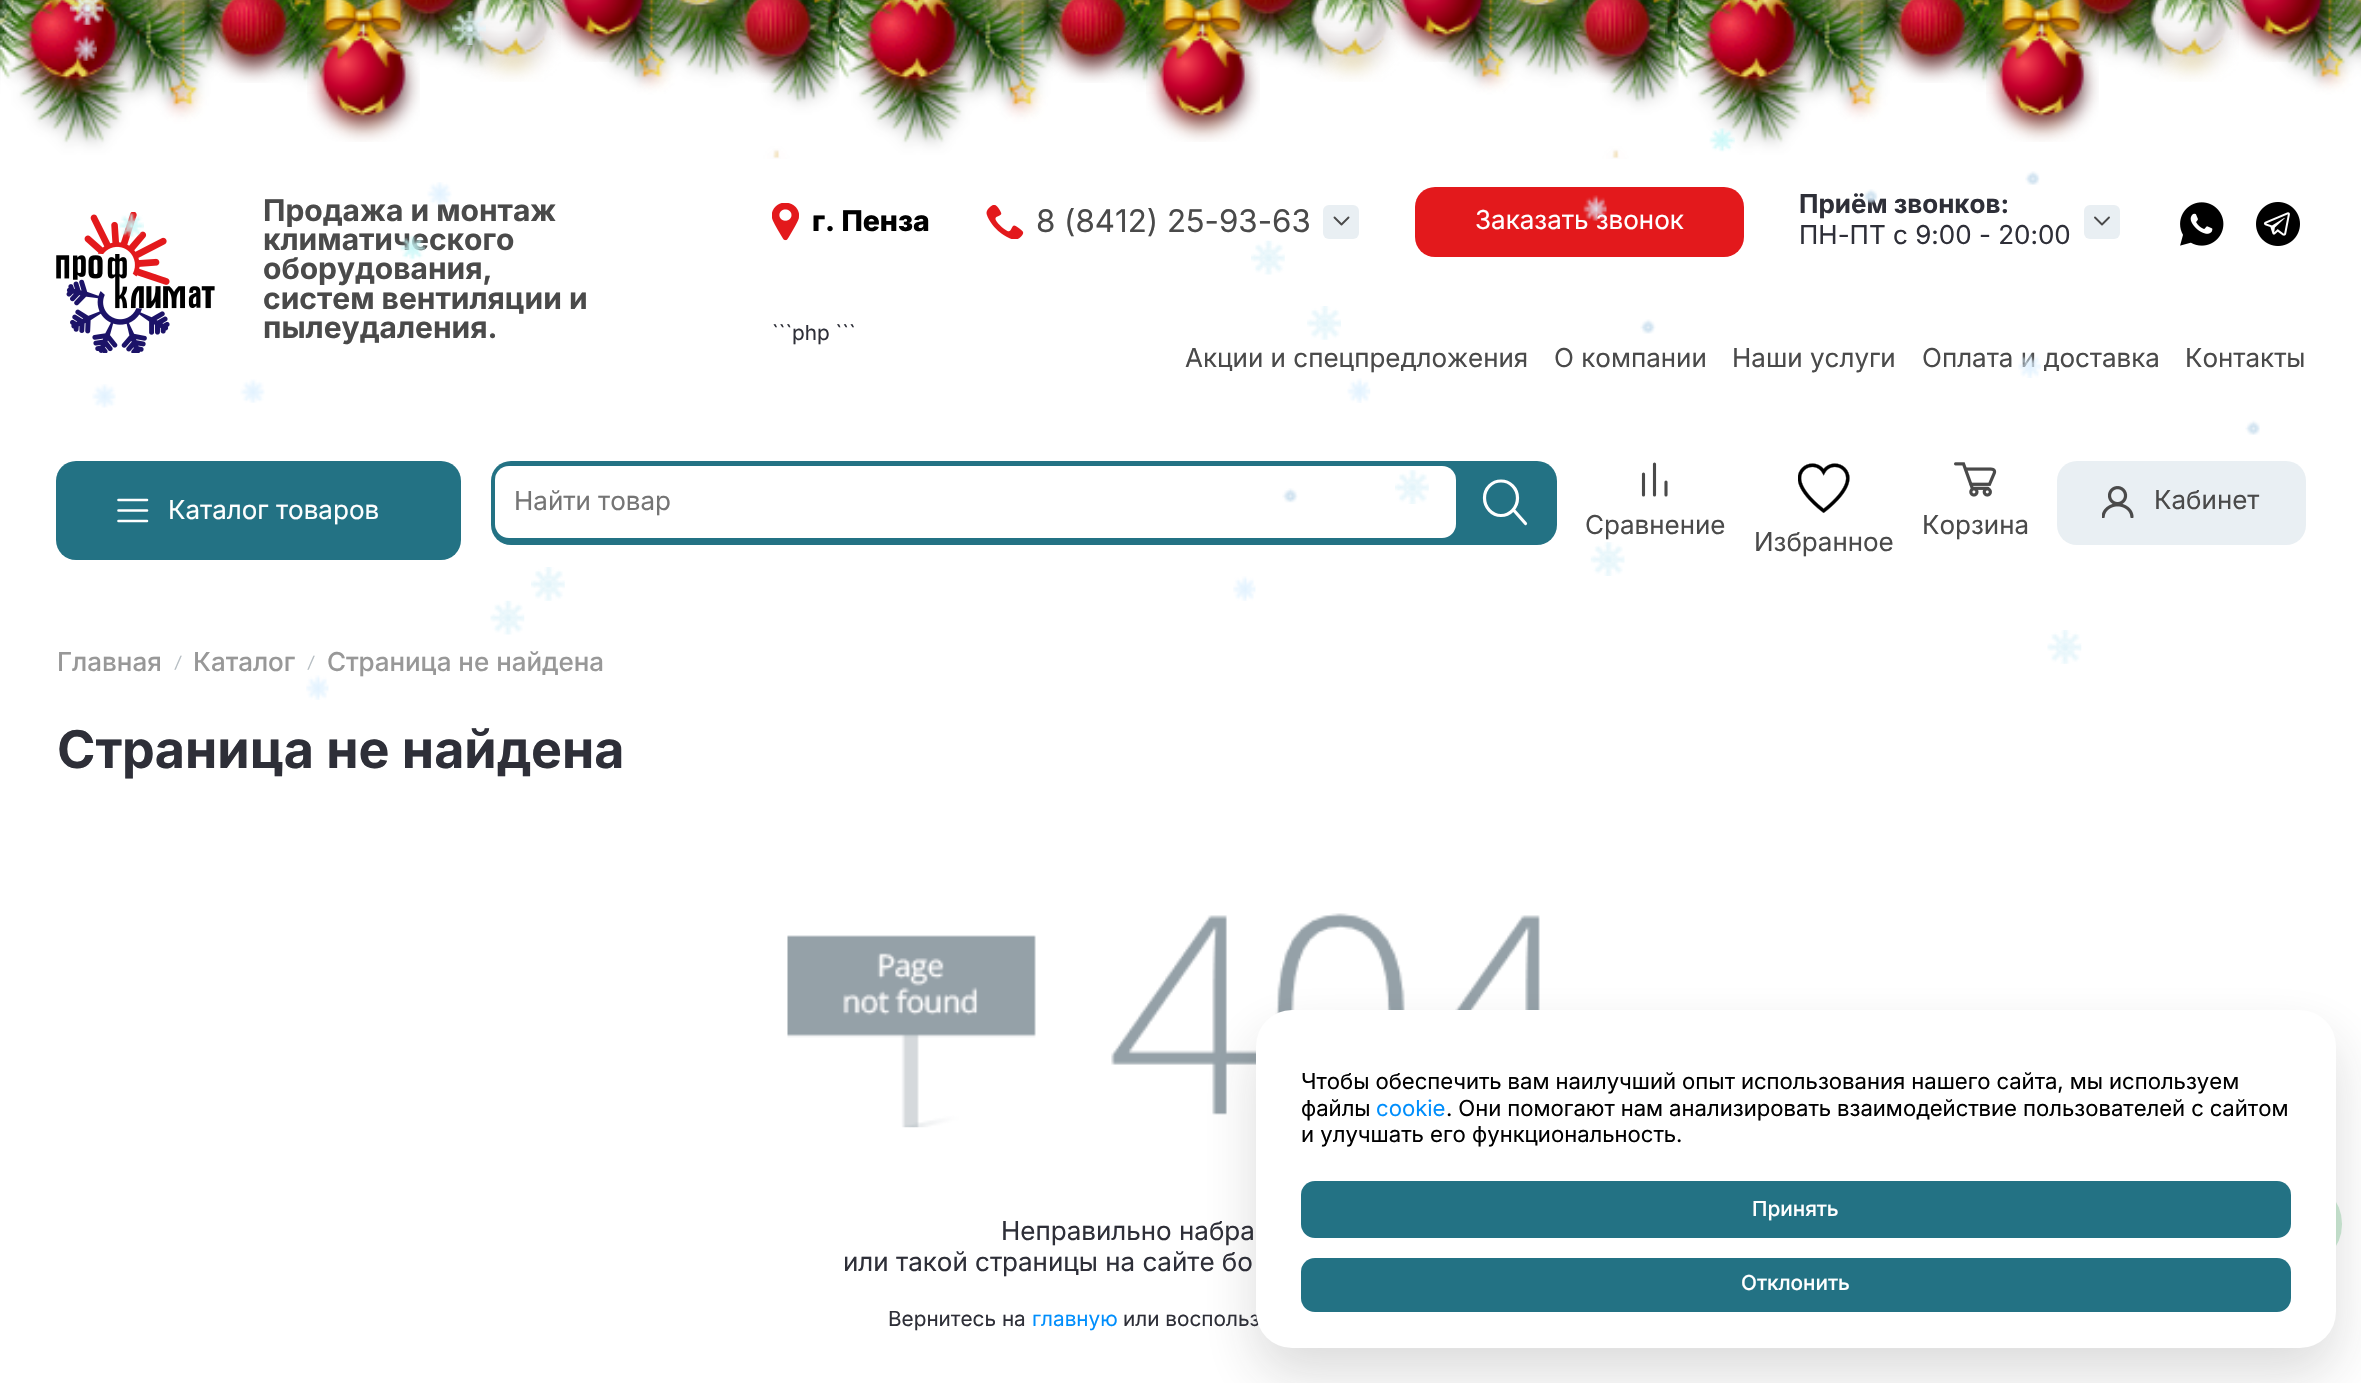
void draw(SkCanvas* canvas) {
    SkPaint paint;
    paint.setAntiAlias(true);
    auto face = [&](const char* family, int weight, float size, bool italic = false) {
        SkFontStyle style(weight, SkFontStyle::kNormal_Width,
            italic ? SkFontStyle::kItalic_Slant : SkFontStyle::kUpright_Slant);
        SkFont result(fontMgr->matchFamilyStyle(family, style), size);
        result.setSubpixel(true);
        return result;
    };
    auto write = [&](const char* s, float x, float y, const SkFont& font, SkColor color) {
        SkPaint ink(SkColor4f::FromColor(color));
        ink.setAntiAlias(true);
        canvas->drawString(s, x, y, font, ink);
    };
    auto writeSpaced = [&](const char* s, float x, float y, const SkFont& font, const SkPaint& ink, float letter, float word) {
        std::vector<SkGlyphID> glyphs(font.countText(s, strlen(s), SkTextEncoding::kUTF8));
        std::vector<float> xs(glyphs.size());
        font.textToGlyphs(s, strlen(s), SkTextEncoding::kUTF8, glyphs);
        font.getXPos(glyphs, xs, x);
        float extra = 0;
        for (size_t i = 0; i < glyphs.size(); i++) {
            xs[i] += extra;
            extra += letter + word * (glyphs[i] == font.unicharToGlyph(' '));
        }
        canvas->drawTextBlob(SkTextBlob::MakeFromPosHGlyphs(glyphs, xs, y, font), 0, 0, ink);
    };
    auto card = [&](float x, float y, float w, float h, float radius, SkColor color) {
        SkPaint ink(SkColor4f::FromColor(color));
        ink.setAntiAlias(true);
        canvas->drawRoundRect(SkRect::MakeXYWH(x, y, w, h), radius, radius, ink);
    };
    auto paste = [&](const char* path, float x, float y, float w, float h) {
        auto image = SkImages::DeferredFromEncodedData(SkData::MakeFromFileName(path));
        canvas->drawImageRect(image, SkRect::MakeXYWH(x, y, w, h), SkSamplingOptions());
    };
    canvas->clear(SK_ColorWHITE);
    paste("pic8.png", 0, 0, 2361, 159);
    paste("pic10.png", 15, 0, 116, 103);
    paste("pic9.png", 0, 0, 56, 79);
    paste("pic11.png", 130, 0, 92, 24);
    paste("pic12.png", 206, 0, 93, 83);
    paste("pic13.png", 307, 0, 113, 142);
    paste("pic14.png", 382, 0, 88, 40);
    paste("pic15.png", 459, 0, 102, 82);
    paste("pic17.png", 548, 0, 109, 62);
    paste("pic16.png", 482, 0, 90, 32);
    paste("pic18.png", 652, 0, 92, 29);
    paste("pic19.png", 731, 0, 93, 83);
    paste("pic20.png", 825, 0, 15, 74);
    paste("pic22.png", 854, 0, 117, 103);
    paste("pic21.png", 839, 0, 57, 79);
    paste("pic23.png", 969, 0, 92, 24);
    paste("pic24.png", 1045, 0, 93, 83);
    paste("pic25.png", 1146, 0, 114, 142);
    paste("pic26.png", 1221, 0, 89, 40);
    paste("pic27.png", 1299, 0, 101, 82);
    paste("pic29.png", 1387, 0, 110, 62);
    paste("pic28.png", 1321, 0, 90, 32);
    paste("pic30.png", 1491, 0, 93, 29);
    paste("pic31.png", 1570, 0, 94, 83);
    paste("pic32.png", 1665, 0, 14, 74);
    paste("pic34.png", 1693, 0, 117, 103);
    paste("pic33.png", 1678, 0, 57, 79);
    paste("pic35.png", 1808, 0, 93, 24);
    paste("pic36.png", 1884, 0, 93, 83);
    paste("pic37.png", 1986, 0, 113, 142);
    paste("pic38.png", 2060, 0, 89, 40);
    paste("pic39.png", 2138, 0, 101, 82);
    paste("pic41.png", 2226, 0, 110, 62);
    paste("pic40.png", 2160, 0, 90, 32);
    paste("pic42.png", 2331, 0, 30, 25);
    paint.setColor(SkColorSetARGB(191, 0, 0, 0));
    paint.setMaskFilter(SkMaskFilter::MakeBlur(kNormal_SkBlurStyle, 34));
    canvas->drawRect(SkRect::MakeXYWH(0, -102, 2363, 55), paint);
    paint.setMaskFilter(nullptr);
    paste("pic1.png", 69, 0, 35, 25);
    paste("pic2.png", 452, 11, 34, 34);
    paste("pic3.png", 73, 35, 24, 26);
    paste("pic4.png", 1709, 128, 26, 24);
    paste("pic5.png", 2025, 171, 15, 14);
    auto kFont1 = face("Inter", 700, 30);
    write("Продажа и монтаж", 263, 221, kFont1, SkColorSetRGB(74, 74, 74));
    paste("pic6.png", 427, 182, 25, 24);
    auto kFont2 = face("Inter", 700, 26);
    write("Приём звонков:", 1799, 213, kFont2, SkColorSetRGB(46, 47, 56));
    paste("pic7.png", 1862, 189, 16, 15);
    paste("pic43.png", 56, 212, 159, 141);
    write("климатического", 263, 250, kFont1, SkColorSetRGB(74, 74, 74));
    write("оборудования,", 263, 279, kFont1, SkColorSetRGB(74, 74, 74));
    write("систем вентиляции и", 263, 309, kFont1, SkColorSetRGB(74, 74, 74));
    write("пылеудаления.", 263, 338, kFont1, SkColorSetRGB(74, 74, 74));
    paste("pic44.png", 772, 203, 27, 38);
    auto kFont3 = face("Inter", 800, 28.5f);
    write("г. Пенза", 812, 231, kFont3, SK_ColorBLACK);
    paste("pic45.png", 986, 205, 38, 34);
    auto kFont4 = face("Inter", 400, 31.25f);
    write("8 (8412) 25-93-63", 1036, 232, kFont4, SkColorSetRGB(74, 74, 74));
    card(1323, 205, 36, 34, 6, SkColorSetRGB(233, 239, 243));
    paint.setStyle(SkPaint::kStroke_Style);
    paint.setStrokeWidth(1.9f);
    paint.setStrokeCap(SkPaint::kRound_Cap);
    paint.setStrokeJoin(SkPaint::kRound_Join);
    paint.setColor(SkColorSetRGB(74, 74, 74));
    canvas->drawPath(SkPathBuilder().moveTo(1334.5f, 217.5f).lineTo(1341.5f, 224.5f).lineTo(1348.5f, 217.5f).detach(), paint);
    card(1415, 187, 329, 70, 20, SkColorSetRGB(227, 25, 28));
    auto kFont5 = face("Inter", 400, 26);
    write("Заказать звонок", 1475, 229, kFont5, SK_ColorWHITE);
    write("ПН-ПТ с 9:00 - 20:00", 1799, 244, kFont5, SkColorSetRGB(46, 47, 56));
    card(2084, 205, 36, 34, 6, SkColorSetRGB(233, 239, 243));
    canvas->drawPath(SkPathBuilder().moveTo(2095, 217.5f).lineTo(2102, 224.5f).lineTo(2109, 217.5f).detach(), paint);
    paste("pic46.png", 2180, 202, 44, 44);
    paste("pic47.png", 2256, 202, 44, 44);
    auto kFont6 = face("Inter", 400, 20.75f);
    write("```php ```", 772, 340, kFont6, SkColorSetRGB(46, 47, 56));
    write("Акции и спецпредложения", 1185, 367, kFont5, SkColorSetRGB(74, 74, 74));
    write("О компании", 1554, 367, kFont5, SkColorSetRGB(74, 74, 74));
    write("Наши услуги", 1732, 367, kFont5, SkColorSetRGB(74, 74, 74));
    write("Оплата и доставка", 1922, 367, kFont5, SkColorSetRGB(74, 74, 74));
    write("Контакты", 2185, 367, kFont5, SkColorSetRGB(74, 74, 74));
    card(56, 461, 405, 99, 20, SkColorSetRGB(35, 114, 132));
    paint.setStrokeWidth(2.6f);
    paint.setStrokeJoin(SkPaint::kMiter_Join);
    paint.setColor(SK_ColorWHITE);
    canvas->drawPath(SkPathBuilder().moveTo(118.5f, 500).lineTo(147, 500).moveTo(118.5f, 510.5f).lineTo(147, 510.5f).moveTo(118.5f, 521).lineTo(147, 521).detach(), paint);
    write("Каталог товаров", 168, 519, kFont5, SK_ColorWHITE);
    card(491, 461, 1066, 84, 20, SkColorSetRGB(35, 114, 132));
    card(495, 466, 961, 72, 14, SK_ColorWHITE);
    write("Найти товар", 514, 510, kFont5, SkColorSetRGB(117, 117, 117));
    paint.setStrokeWidth(3.2f);
    paint.setStrokeCap(SkPaint::kButt_Cap);
    canvas->drawPath(SkPathBuilder().moveTo(1517.5f, 498).cubicTo(1517.5f, 507.5f, 1510, 515.5f, 1501, 515.5f).cubicTo(1492, 515.5f, 1484.5f, 507.5f, 1484.5f, 498).cubicTo(1484.5f, 488.5f, 1492, 481, 1501, 481).cubicTo(1510, 481, 1517.5f, 488.5f, 1517.5f, 498).close().detach(), paint);
    paint.setStrokeCap(SkPaint::kRound_Cap);
    canvas->drawPath(SkPathBuilder().moveTo(1514, 510.5f).lineTo(1525.5f, 523.5f).detach(), paint);
    paint.setStrokeWidth(3.1f);
    paint.setColor(SkColorSetRGB(74, 74, 74));
    canvas->drawPath(SkPathBuilder().moveTo(1643.5f, 495).lineTo(1643.5f, 474).moveTo(1654.5f, 495).lineTo(1654.5f, 464).moveTo(1666, 495).lineTo(1666, 482).detach(), paint);
    write("Сравнение", 1585, 534, kFont5, SkColorSetRGB(74, 74, 74));
    paste("pic48.png", 1954, 462, 43, 35);
    write("Корзина", 1922, 534, kFont5, SkColorSetRGB(74, 74, 74));
    card(2057, 461, 249, 84, 20, SkColorSetRGB(233, 239, 243));
    paste("pic49.png", 2102, 486, 32, 32);
    write("Кабинет", 2154, 509, kFont5, SkColorSetRGB(74, 74, 74));
    paste("pic50.png", 1798, 463, 52, 51);
    write("Избранное", 1754, 551, kFont5, SkColorSetRGB(74, 74, 74));
    auto kFont7 = face("Inter", 500, 26);
    write("Главная", 57, 671, kFont7, SkColorSetRGB(152, 152, 152));
    auto kFont8 = face("Inter", 400, 16, true);
    write("/", 175, 668, kFont8, SkColorSetRGB(181, 189, 194));
    write("Каталог", 193, 671, kFont7, SkColorSetRGB(152, 152, 152));
    write("/", 308, 668, kFont8, SkColorSetRGB(181, 189, 194));
    write("Страница не найдена", 327, 671, kFont7, SkColorSetRGB(152, 152, 152));
    auto kFont9 = face("Inter", 700, 52);
    write("Страница не найдена", 57, 768, kFont9, SkColorSetRGB(46, 47, 56));
    paste("pic51.png", 787, 913, 753, 215);
    write("Неправильно набра", 1001, 1240, kFont5, SkColorSetRGB(46, 47, 56));
    write("или такой страницы на сайте бо", 843, 1271, kFont5, SkColorSetRGB(46, 47, 56));
    write("Вернитесь на", 888, 1326, kFont6, SkColorSetRGB(46, 47, 56));
    write("главную", 1032, 1326, kFont6, SkColorSetRGB(0, 142, 252));
    write("или воспольз", 1123, 1326, kFont6, SkColorSetRGB(46, 47, 56));
    card(2257, 1181, 85, 86, 42.5f, SkColorSetARGB(56, 28, 163, 69));
    paint.setStyle(SkPaint::kFill_Style);
    paint.setColor(SkColorSetARGB(41, 38, 38, 38));
    paint.setMaskFilter(SkMaskFilter::MakeBlur(kNormal_SkBlurStyle, 27));
    canvas->drawRoundRect(SkRect::MakeXYWH(1256, 1037, 1080, 338), 36, 36, paint);
    paint.setMaskFilter(nullptr);
    card(1256, 1010, 1080, 338, 36, SK_ColorWHITE);
    auto kFont10 = face("Inter", 400, 22.1f);
    paint.setColor(SK_ColorBLACK);
    writeSpaced("Чтобы обеспечить вам наилучший опыт использования нашего сайта, мы используем", 1301, 1089, kFont10, paint, 0, -0.25f);
    write("файлы", 1301, 1116, kFont10, SK_ColorBLACK);
    write("cookie", 1376, 1116, kFont10, SkColorSetRGB(0, 142, 252));
    writeSpaced(". Они помогают нам анализировать взаимодействие пользователей с сайтом", 1446, 1116, kFont10, paint, 0, -0.25f);
    write("и улучшать его функциональность.", 1301, 1142, kFont10, SK_ColorBLACK);
    card(1301, 1181, 990, 57, 14, SkColorSetRGB(35, 114, 132));
    auto kFont11 = face("Inter", 500, 20.75f);
    write("Принять", 1752, 1216, kFont11, SK_ColorWHITE);
    card(1301, 1258, 990, 54, 14, SkColorSetRGB(35, 114, 132));
    write("Отклонить", 1741, 1290, kFont11, SK_ColorWHITE);
    paste("pic52.png", 1583, 195, 24, 26);
    paste("pic53.png", 118, 213, 26, 24);
    paste("pic54.png", 400, 235, 26, 25);
    paste("pic55.png", 1251, 240, 34, 35);
    paste("pic56.png", 1307, 306, 34, 34);
    paste("pic57.png", 1640, 319, 16, 15);
    paste("pic58.png", 2018, 353, 23, 25);
    paste("pic59.png", 92, 384, 24, 24);
    paste("pic60.png", 240, 379, 25, 24);
    paste("pic61.png", 1347, 378, 24, 25);
    paste("pic62.png", 2245, 420, 15, 15);
    paste("pic63.png", 1282, 488, 16, 15);
    paste("pic64.png", 1395, 470, 34, 34);
    paste("pic65.png", 1590, 542, 35, 34);
    paste("pic66.png", 531, 567, 34, 34);
    paste("pic67.png", 1233, 576, 23, 25);
    paste("pic68.png", 490, 600, 35, 35);
    paste("pic69.png", 2047, 630, 35, 34);
    paste("pic67.png", 306, 675, 23, 25);
}
